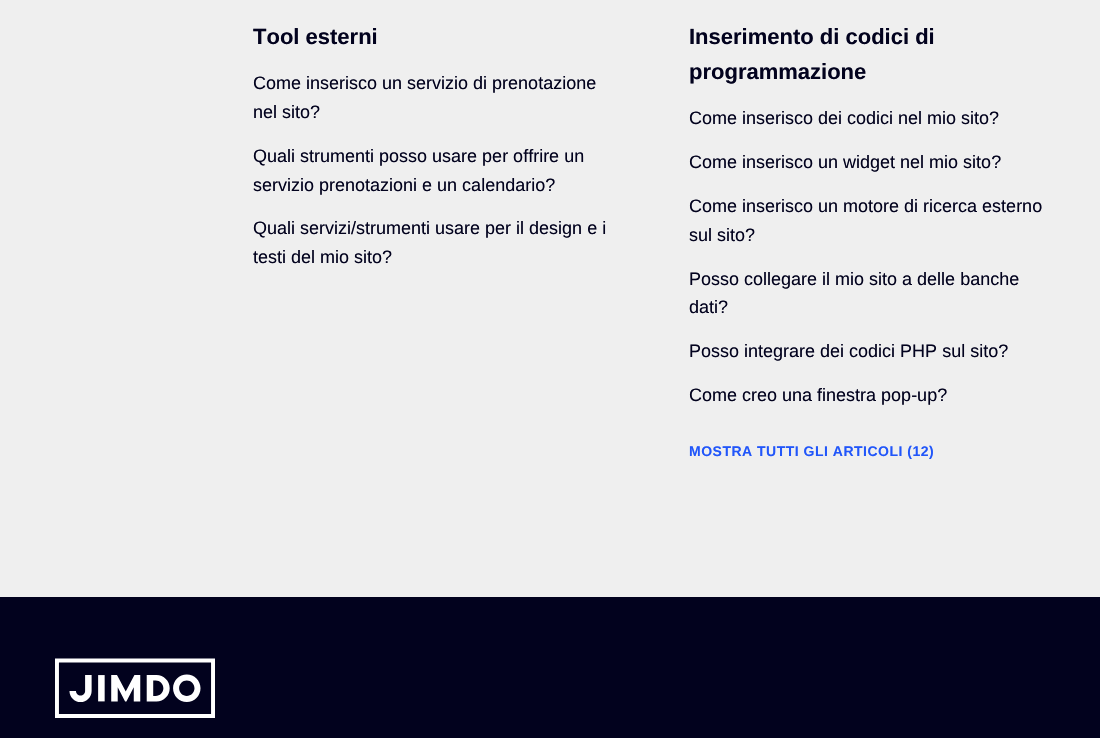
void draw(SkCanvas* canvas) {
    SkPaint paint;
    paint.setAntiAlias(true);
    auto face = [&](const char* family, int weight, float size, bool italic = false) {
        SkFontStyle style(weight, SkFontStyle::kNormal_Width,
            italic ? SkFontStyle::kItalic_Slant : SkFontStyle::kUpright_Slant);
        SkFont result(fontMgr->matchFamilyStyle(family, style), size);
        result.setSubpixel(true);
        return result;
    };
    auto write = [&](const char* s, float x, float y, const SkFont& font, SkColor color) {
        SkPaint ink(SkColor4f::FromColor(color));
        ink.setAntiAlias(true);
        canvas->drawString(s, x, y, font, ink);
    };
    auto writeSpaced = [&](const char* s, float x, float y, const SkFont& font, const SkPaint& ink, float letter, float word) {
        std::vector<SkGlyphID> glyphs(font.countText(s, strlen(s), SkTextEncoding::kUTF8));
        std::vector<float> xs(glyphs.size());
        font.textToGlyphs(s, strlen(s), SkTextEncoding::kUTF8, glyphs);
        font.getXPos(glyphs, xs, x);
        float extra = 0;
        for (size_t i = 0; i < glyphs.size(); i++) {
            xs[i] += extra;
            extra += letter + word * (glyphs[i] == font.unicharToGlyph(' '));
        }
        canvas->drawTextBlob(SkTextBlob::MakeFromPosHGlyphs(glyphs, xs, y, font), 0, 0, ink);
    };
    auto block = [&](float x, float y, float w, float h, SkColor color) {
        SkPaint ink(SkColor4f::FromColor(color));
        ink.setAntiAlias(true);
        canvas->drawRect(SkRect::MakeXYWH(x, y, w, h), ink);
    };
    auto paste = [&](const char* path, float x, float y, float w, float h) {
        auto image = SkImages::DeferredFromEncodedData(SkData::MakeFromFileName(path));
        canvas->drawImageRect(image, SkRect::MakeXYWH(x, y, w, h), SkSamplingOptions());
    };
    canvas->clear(SkColorSetRGB(239, 239, 239));
    auto kFont1 = face("Liberation Sans", 700, 22);
    write("Tool esterni", 253, 44, kFont1, SkColorSetRGB(2, 2, 30));
    auto kFont2 = face("Liberation Sans", 400, 18);
    write("Come inserisco un servizio di prenotazione", 253, 89, kFont2, SkColorSetRGB(2, 2, 30));
    write("nel sito?", 253, 118, kFont2, SkColorSetRGB(2, 2, 30));
    write("Quali strumenti posso usare per offrire un", 253, 162, kFont2, SkColorSetRGB(2, 2, 30));
    write("servizio prenotazioni e un calendario?", 253, 191, kFont2, SkColorSetRGB(2, 2, 30));
    write("Quali servizi/strumenti usare per il design e i", 253, 234, kFont2, SkColorSetRGB(2, 2, 30));
    write("testi del mio sito?", 253, 263, kFont2, SkColorSetRGB(2, 2, 30));
    write("Inserimento di codici di", 689, 44, kFont1, SkColorSetRGB(2, 2, 30));
    write("programmazione", 689, 79, kFont1, SkColorSetRGB(2, 2, 30));
    write("Come inserisco dei codici nel mio sito?", 689, 124, kFont2, SkColorSetRGB(2, 2, 30));
    write("Come inserisco un widget nel mio sito?", 689, 168, kFont2, SkColorSetRGB(2, 2, 30));
    write("Come inserisco un motore di ricerca esterno", 689, 212, kFont2, SkColorSetRGB(2, 2, 30));
    write("sul sito?", 689, 241, kFont2, SkColorSetRGB(2, 2, 30));
    write("Posso collegare il mio sito a delle banche", 689, 285, kFont2, SkColorSetRGB(2, 2, 30));
    write("dati?", 689, 313, kFont2, SkColorSetRGB(2, 2, 30));
    write("Posso integrare dei codici PHP sul sito?", 689, 357, kFont2, SkColorSetRGB(2, 2, 30));
    write("Come creo una finestra pop-up?", 689, 401, kFont2, SkColorSetRGB(2, 2, 30));
    auto kFont3 = face("Liberation Sans", 700, 14);
    paint.setColor(SkColorSetRGB(33, 86, 250));
    writeSpaced("MOSTRA TUTTI GLI ARTICOLI (12)", 689, 456, kFont3, paint, 0.5f, 0);
    block(0, 597, 1100, 141, SkColorSetRGB(2, 2, 30));
    paste("pic1.png", 55, 658, 160, 60);
}
